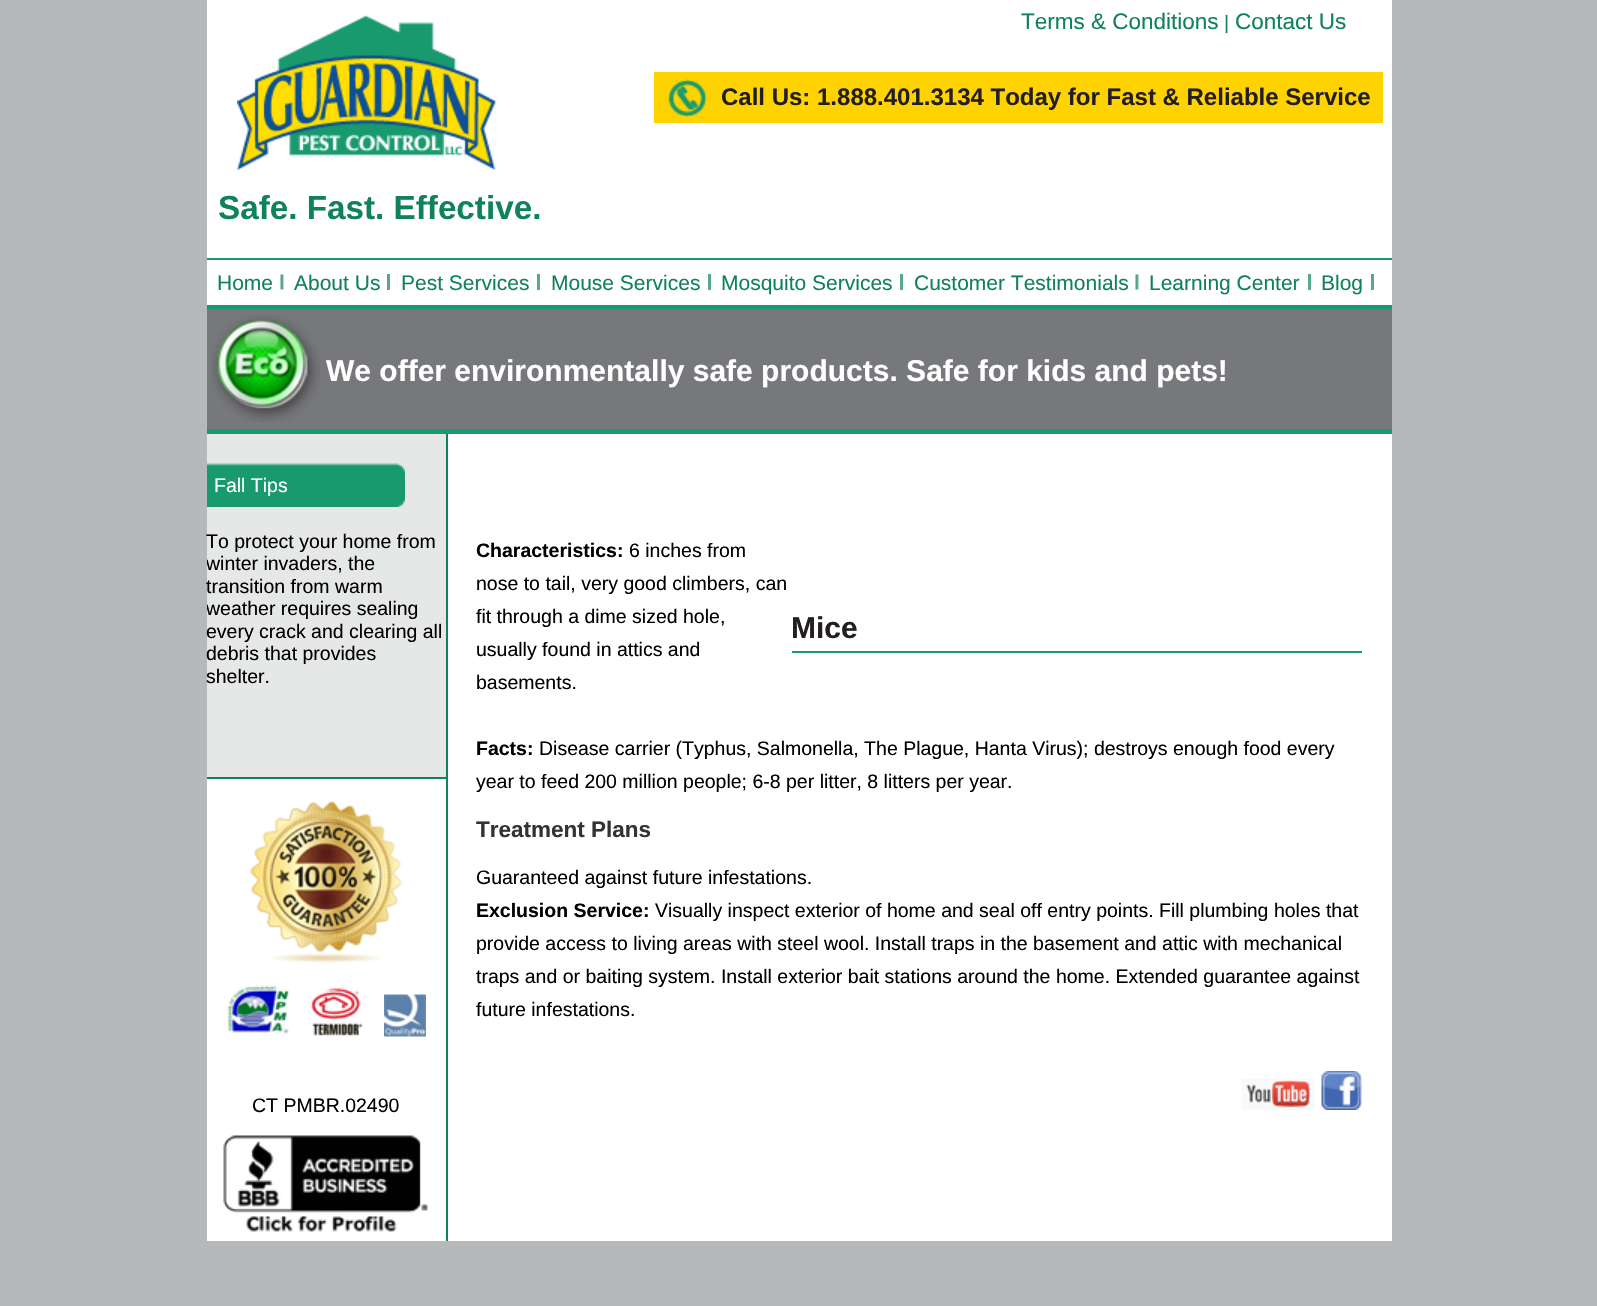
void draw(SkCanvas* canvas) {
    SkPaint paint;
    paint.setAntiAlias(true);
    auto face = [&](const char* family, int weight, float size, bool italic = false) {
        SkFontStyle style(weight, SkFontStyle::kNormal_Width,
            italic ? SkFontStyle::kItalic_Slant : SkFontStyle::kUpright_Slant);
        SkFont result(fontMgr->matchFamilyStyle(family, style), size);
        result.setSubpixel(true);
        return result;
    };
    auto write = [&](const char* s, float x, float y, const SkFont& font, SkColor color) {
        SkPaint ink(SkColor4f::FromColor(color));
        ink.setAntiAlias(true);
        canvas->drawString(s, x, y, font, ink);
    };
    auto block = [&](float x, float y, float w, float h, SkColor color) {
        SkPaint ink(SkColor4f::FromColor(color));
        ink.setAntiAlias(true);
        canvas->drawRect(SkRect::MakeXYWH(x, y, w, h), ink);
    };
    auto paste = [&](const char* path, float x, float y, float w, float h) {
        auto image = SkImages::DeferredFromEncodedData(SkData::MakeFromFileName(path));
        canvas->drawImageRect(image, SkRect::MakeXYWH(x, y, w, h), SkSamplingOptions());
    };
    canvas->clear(SkColorSetRGB(182, 184, 186));
    block(207, 0, 1185, 1241, SK_ColorWHITE);
    block(207, 305, 1185, 4, SkColorSetRGB(25, 154, 110));
    paste("pic1.png", 237, 15, 260, 155);
    auto kFont1 = face("Liberation Sans", 400, 22.5f);
    write("Terms & Conditions", 1021, 29, kFont1, SkColorSetRGB(15, 130, 91));
    auto kFont2 = face("Liberation Sans", 400, 19.5f);
    write("|", 1224, 29, kFont2, SkColorSetRGB(15, 130, 91));
    write("Contact Us", 1235, 29, kFont1, SkColorSetRGB(15, 130, 91));
    block(654, 72, 729, 51, SkColorSetRGB(255, 211, 0));
    paste("pic2.png", 668, 79, 39, 38);
    auto kFont3 = face("Liberation Sans", 700, 24);
    write("Call Us: 1.888.401.3134 Today for Fast & Reliable Service", 721, 105, kFont3, SkColorSetRGB(35, 31, 32));
    auto kFont4 = face("Liberation Sans", 700, 33.25f);
    write("Safe. Fast. Effective.", 218, 219, kFont4, SkColorSetRGB(15, 130, 91));
    block(207, 258, 1185, 2, SkColorSetRGB(25, 154, 110));
    paste("pic3.png", 280, 274, 4, 16);
    auto kFont5 = face("Liberation Sans", 400, 21);
    write("Home", 217, 290, kFont5, SkColorSetRGB(15, 130, 91));
    block(387, 274, 3, 16, SkColorSetRGB(86, 167, 140));
    write("About Us", 294, 290, kFont5, SkColorSetRGB(15, 130, 91));
    block(537, 274, 3, 16, SkColorSetRGB(88, 168, 141));
    write("Pest Services", 401, 290, kFont5, SkColorSetRGB(15, 130, 91));
    block(708, 274, 3, 16, SkColorSetRGB(86, 167, 140));
    write("Mouse Services", 551, 290, kFont5, SkColorSetRGB(15, 130, 91));
    block(900, 274, 3, 16, SkColorSetRGB(88, 168, 141));
    write("Mosquito Services", 721, 290, kFont5, SkColorSetRGB(15, 130, 91));
    paste("pic3.png", 1135, 274, 4, 16);
    write("Customer Testimonials", 914, 290, kFont5, SkColorSetRGB(15, 130, 91));
    block(1308, 274, 3, 16, SkColorSetRGB(88, 168, 141));
    write("Learning Center", 1149, 290, kFont5, SkColorSetRGB(15, 130, 91));
    block(1371, 274, 3, 16, SkColorSetRGB(88, 168, 141));
    write("Blog", 1321, 290, kFont5, SkColorSetRGB(15, 130, 91));
    block(207, 429, 1185, 5, SkColorSetRGB(25, 154, 110));
    block(207, 309, 1185, 120, SkColorSetRGB(119, 120, 123));
    paste("pic4.png", 211, 315, 109, 107);
    auto kFont6 = face("Liberation Sans", 700, 30);
    write("We offer environmentally safe products. Safe for kids and pets!", 326, 381, kFont6, SK_ColorWHITE);
    block(207, 434, 239, 343, SkColorSetRGB(230, 231, 231));
    block(207, 777, 239, 2, SkColorSetRGB(15, 130, 91));
    paste("pic5.png", 207, 463, 198, 44);
    write("Fall Tips", 214, 492, kFont2, SK_ColorWHITE);
    write("To protect your home from", 206, 548, kFont2, SK_ColorBLACK);
    canvas->save();
    canvas->clipRect(SkRect::MakeXYWH(207, 434, 239, 253));
    write("winter invaders, the", 206, 570, kFont2, SK_ColorBLACK);
    canvas->restore();
    write("transition from warm", 206, 593, kFont2, SK_ColorBLACK);
    canvas->save();
    canvas->clipRect(SkRect::MakeXYWH(207, 434, 239, 253));
    write("weather requires sealing", 206, 615, kFont2, SK_ColorBLACK);
    canvas->restore();
    write("every crack and clearing all", 206, 638, kFont2, SK_ColorBLACK);
    write("debris that provides", 206, 660, kFont2, SK_ColorBLACK);
    write("shelter.", 206, 683, kFont2, SK_ColorBLACK);
    block(446, 434, 2, 807, SkColorSetRGB(15, 130, 91));
    auto kFont7 = face("Liberation Sans", 700, 19.5f);
    write("Characteristics:", 476, 557, kFont7, SK_ColorBLACK);
    write("6 inches from", 629, 557, kFont2, SK_ColorBLACK);
    write("nose to tail, very good climbers, can", 476, 590, kFont2, SK_ColorBLACK);
    write("fit through a dime sized hole,", 476, 623, kFont2, SK_ColorBLACK);
    block(792, 651, 570, 2, SkColorSetRGB(25, 154, 110));
    write("Mice", 791, 638, kFont6, SkColorSetRGB(35, 31, 32));
    write("usually found in attics and", 476, 656, kFont2, SK_ColorBLACK);
    write("basements.", 476, 689, kFont2, SK_ColorBLACK);
    write("Facts:", 476, 755, kFont7, SK_ColorBLACK);
    write("Disease carrier (Typhus, Salmonella, The Plague, Hanta Virus); destroys enough food every", 539, 755, kFont2, SK_ColorBLACK);
    write("year to feed 200 million people; 6-8 per litter, 8 litters per year.", 476, 788, kFont2, SK_ColorBLACK);
    auto kFont8 = face("Liberation Sans", 700, 22.5f);
    write("Treatment Plans", 476, 837, kFont8, SkColorSetRGB(51, 51, 51));
    write("Guaranteed against future infestations.", 476, 884, kFont2, SK_ColorBLACK);
    write("Exclusion Service:", 476, 917, kFont7, SK_ColorBLACK);
    write("Visually inspect exterior of home and seal off entry points. Fill plumbing holes that", 655, 917, kFont2, SK_ColorBLACK);
    write("provide access to living areas with steel wool. Install traps in the basement and attic with mechanical", 476, 950, kFont2, SK_ColorBLACK);
    write("traps and or baiting system. Install exterior bait stations around the home. Extended guarantee against", 476, 983, kFont2, SK_ColorBLACK);
    write("future infestations.", 476, 1016, kFont2, SK_ColorBLACK);
    paste("pic6.png", 250, 801, 152, 162);
    paste("pic7.png", 227, 985, 63, 49);
    paste("pic8.png", 311, 988, 52, 49);
    paste("pic9.png", 384, 994, 42, 43);
    write("CT PMBR.02490", 252, 1112, kFont2, SK_ColorBLACK);
    paste("pic10.png", 1241, 1078, 74, 32);
    paste("pic11.png", 1321, 1071, 41, 39);
    paste("pic12.png", 223, 1135, 205, 97);
}
